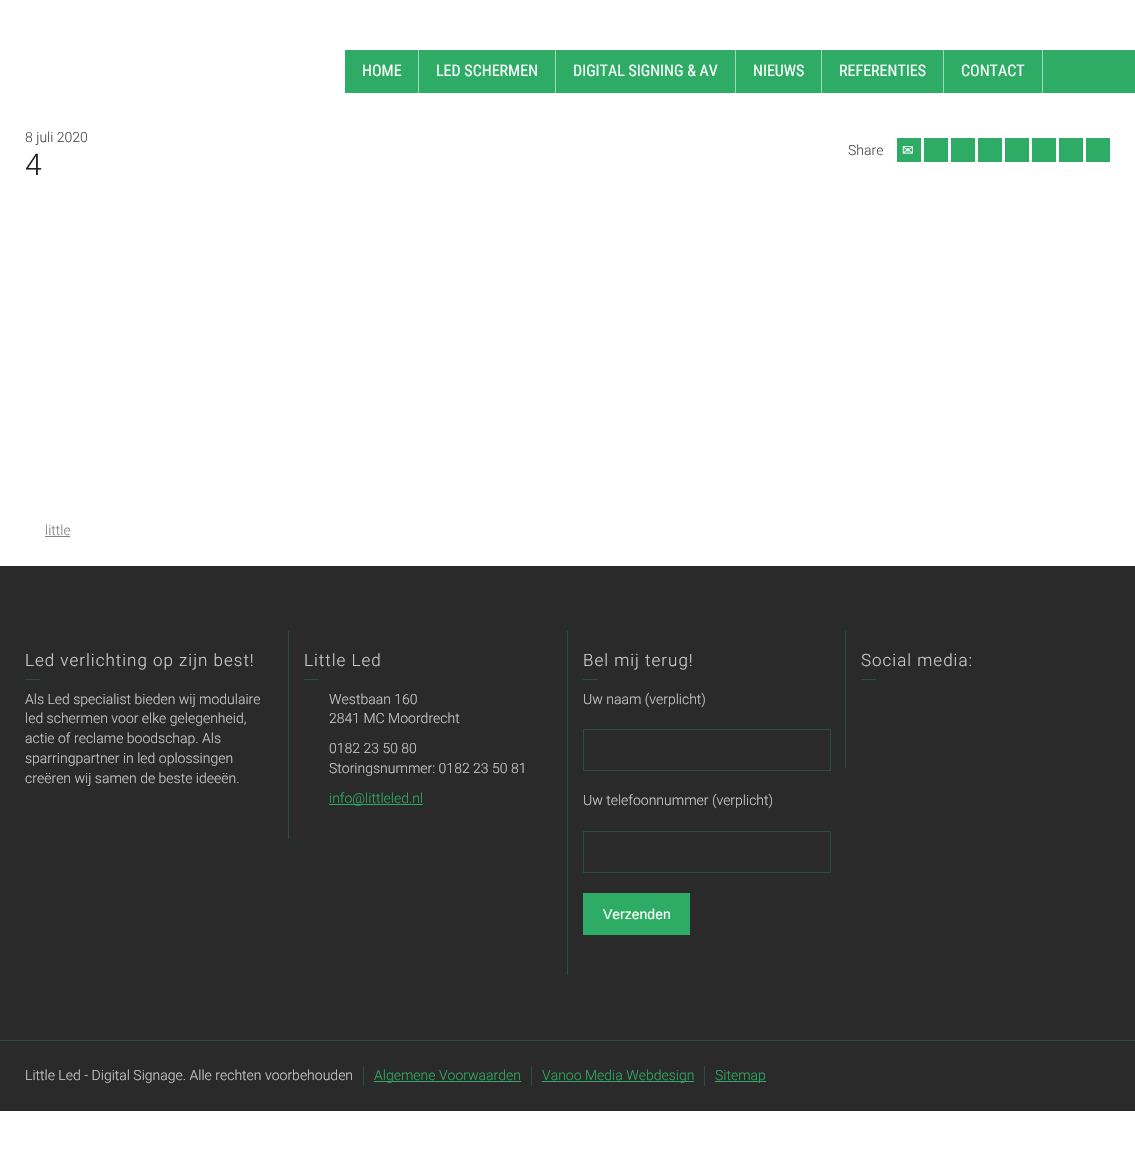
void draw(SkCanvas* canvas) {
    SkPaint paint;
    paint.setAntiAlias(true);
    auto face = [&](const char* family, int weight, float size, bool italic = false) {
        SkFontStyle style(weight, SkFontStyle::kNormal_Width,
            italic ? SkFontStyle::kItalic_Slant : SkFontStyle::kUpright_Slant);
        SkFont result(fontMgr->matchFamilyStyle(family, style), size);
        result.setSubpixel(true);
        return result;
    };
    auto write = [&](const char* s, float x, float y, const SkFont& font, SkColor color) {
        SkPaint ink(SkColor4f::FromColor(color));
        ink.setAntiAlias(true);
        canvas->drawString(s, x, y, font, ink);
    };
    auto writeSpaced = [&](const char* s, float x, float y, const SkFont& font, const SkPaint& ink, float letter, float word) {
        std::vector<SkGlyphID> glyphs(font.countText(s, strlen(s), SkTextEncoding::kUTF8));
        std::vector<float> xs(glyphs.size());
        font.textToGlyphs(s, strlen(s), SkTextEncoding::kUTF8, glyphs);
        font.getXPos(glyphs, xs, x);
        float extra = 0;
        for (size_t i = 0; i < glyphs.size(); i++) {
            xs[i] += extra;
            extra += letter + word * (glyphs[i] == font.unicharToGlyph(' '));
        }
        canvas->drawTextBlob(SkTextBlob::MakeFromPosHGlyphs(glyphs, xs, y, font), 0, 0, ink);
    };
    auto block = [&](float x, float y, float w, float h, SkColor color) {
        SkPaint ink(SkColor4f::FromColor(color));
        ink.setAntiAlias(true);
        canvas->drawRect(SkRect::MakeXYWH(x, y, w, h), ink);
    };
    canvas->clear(SK_ColorWHITE);
    block(345, 50, 73, 43, SkColorSetRGB(46, 172, 102));
    block(418, 50, 1, 43, SkColorSetRGB(159, 217, 185));
    auto kFont1 = face("Roboto Condensed", 400, 16);
    write("HOME", 362, 76, kFont1, SK_ColorWHITE);
    block(419, 50, 136, 43, SkColorSetRGB(46, 172, 102));
    block(555, 50, 1, 43, SkColorSetRGB(159, 217, 185));
    write("LED SCHERMEN", 436, 76, kFont1, SK_ColorWHITE);
    block(556, 50, 179, 43, SkColorSetRGB(46, 172, 102));
    block(735, 50, 1, 43, SkColorSetRGB(159, 217, 185));
    write("DIGITAL SIGNING & AV", 573, 76, kFont1, SK_ColorWHITE);
    block(736, 50, 85, 43, SkColorSetRGB(46, 172, 102));
    block(821, 50, 1, 43, SkColorSetRGB(159, 217, 185));
    write("NIEUWS", 753, 76, kFont1, SK_ColorWHITE);
    block(822, 50, 121, 43, SkColorSetRGB(46, 172, 102));
    block(943, 50, 1, 43, SkColorSetRGB(159, 217, 185));
    write("REFERENTIES", 839, 76, kFont1, SK_ColorWHITE);
    block(944, 50, 98, 43, SkColorSetRGB(46, 172, 102));
    block(1042, 50, 1, 43, SkColorSetRGB(159, 217, 185));
    write("CONTACT", 961, 76, kFont1, SK_ColorWHITE);
    block(1043, 50, 92, 43, SkColorSetRGB(46, 172, 102));
    auto kFont2 = face("Roboto", 300, 14);
    write("8 juli 2020", 25, 142, kFont2, SkColorSetRGB(73, 73, 73));
    auto kFont3 = face("Roboto", 300, 30);
    write("4", 25, 175, kFont3, SkColorSetRGB(34, 34, 34));
    write("Share", 848, 155, kFont2, SkColorSetRGB(73, 73, 73));
    block(897, 138, 24, 24, SkColorSetRGB(46, 172, 102));
    auto kFont4 = face("DejaVu Sans", 400, 14);
    write("✉", 902, 155, kFont4, SK_ColorWHITE);
    block(924, 138, 24, 24, SkColorSetRGB(46, 172, 102));
    block(951, 138, 24, 24, SkColorSetRGB(46, 172, 102));
    block(978, 138, 24, 24, SkColorSetRGB(46, 172, 102));
    block(1005, 138, 24, 24, SkColorSetRGB(46, 172, 102));
    block(1032, 138, 24, 24, SkColorSetRGB(46, 172, 102));
    block(1059, 138, 24, 24, SkColorSetRGB(46, 172, 102));
    block(1086, 138, 24, 24, SkColorSetRGB(46, 172, 102));
    write("little", 45, 535, kFont2, SkColorSetRGB(129, 129, 129));
    block(45, 536, 25, 1, SkColorSetRGB(129, 129, 129));
    block(0, 566, 1135, 474, SkColorSetRGB(42, 42, 42));
    auto kFont5 = face("Roboto", 300, 17);
    paint.setColor(SkColorSetRGB(202, 202, 202));
    writeSpaced("Led verlichting op zijn best!", 25, 666, kFont5, paint, 1, 0);
    block(25, 679, 15, 1, SkColorSetRGB(43, 78, 59));
    write("Als Led specialist bieden wij modulaire", 25, 704, kFont2, SkColorSetRGB(202, 202, 202));
    write("led schermen voor elke gelegenheid,", 25, 723, kFont2, SkColorSetRGB(202, 202, 202));
    write("actie of reclame boodschap. Als", 25, 743, kFont2, SkColorSetRGB(202, 202, 202));
    write("sparringpartner in led oplossingen", 25, 763, kFont2, SkColorSetRGB(202, 202, 202));
    write("creëren wij samen de beste ideeën.", 25, 783, kFont2, SkColorSetRGB(202, 202, 202));
    block(288, 631, 1, 208, SkColorSetRGB(43, 78, 59));
    writeSpaced("Little Led", 304, 666, kFont5, paint, 1, 0);
    block(304, 679, 15, 1, SkColorSetRGB(43, 78, 59));
    write("Westbaan 160", 329, 704, kFont2, SkColorSetRGB(202, 202, 202));
    write("2841 MC Moordrecht", 329, 723, kFont2, SkColorSetRGB(202, 202, 202));
    write("0182 23 50 80", 329, 753, kFont2, SkColorSetRGB(202, 202, 202));
    write("Storingsnummer: 0182 23 50 81", 329, 773, kFont2, SkColorSetRGB(202, 202, 202));
    block(329, 804, 94, 1, SkColorSetRGB(46, 172, 102));
    write("info@littleled.nl", 329, 803, kFont2, SkColorSetRGB(46, 172, 102));
    block(567, 631, 1, 344, SkColorSetRGB(43, 78, 59));
    writeSpaced("Bel mij terug!", 583, 666, kFont5, paint, 1, 0);
    block(583, 679, 15, 1, SkColorSetRGB(43, 78, 59));
    write("Uw naam (verplicht)", 583, 704, kFont2, SkColorSetRGB(202, 202, 202));
    paint.setStyle(SkPaint::kStroke_Style);
    paint.setStrokeWidth(1);
    paint.setColor(SkColorSetRGB(43, 78, 59));
    canvas->drawRect(SkRect::MakeXYWH(583.5f, 729.5f, 247, 41), paint);
    write("Uw telefoonnummer (verplicht)", 583, 805, kFont2, SkColorSetRGB(202, 202, 202));
    canvas->drawRect(SkRect::MakeXYWH(583.5f, 831.5f, 247, 41), paint);
    block(583, 893, 107, 42, SkColorSetRGB(46, 172, 102));
    auto kFont6 = face("Liberation Sans", 400, 14);
    write("Verzenden", 603, 919, kFont6, SK_ColorWHITE);
    block(845, 631, 1, 137, SkColorSetRGB(43, 78, 59));
    paint.setStyle(SkPaint::kFill_Style);
    paint.setColor(SkColorSetRGB(202, 202, 202));
    writeSpaced("Social media:", 861, 666, kFont5, paint, 1, 0);
    block(861, 679, 15, 1, SkColorSetRGB(43, 78, 59));
    block(0, 1041, 1135, 70, SkColorSetRGB(42, 42, 42));
    block(0, 1040, 1135, 1, SkColorSetRGB(43, 78, 59));
    write("Little Led - Digital Signage. Alle rechten voorbehouden", 25, 1080, kFont2, SkColorSetRGB(202, 202, 202));
    block(363, 1066, 1, 20, SkColorSetRGB(43, 78, 59));
    block(374, 1081, 147, 1, SkColorSetRGB(46, 172, 102));
    write("Algemene Voorwaarden", 374, 1080, kFont2, SkColorSetRGB(46, 172, 102));
    block(531, 1066, 1, 20, SkColorSetRGB(43, 78, 59));
    block(542, 1081, 152, 1, SkColorSetRGB(46, 172, 102));
    write("Vanoo Media Webdesign", 542, 1080, kFont2, SkColorSetRGB(46, 172, 102));
    block(704, 1066, 1, 20, SkColorSetRGB(43, 78, 59));
    block(715, 1081, 51, 1, SkColorSetRGB(46, 172, 102));
    write("Sitemap", 715, 1080, kFont2, SkColorSetRGB(46, 172, 102));
}
